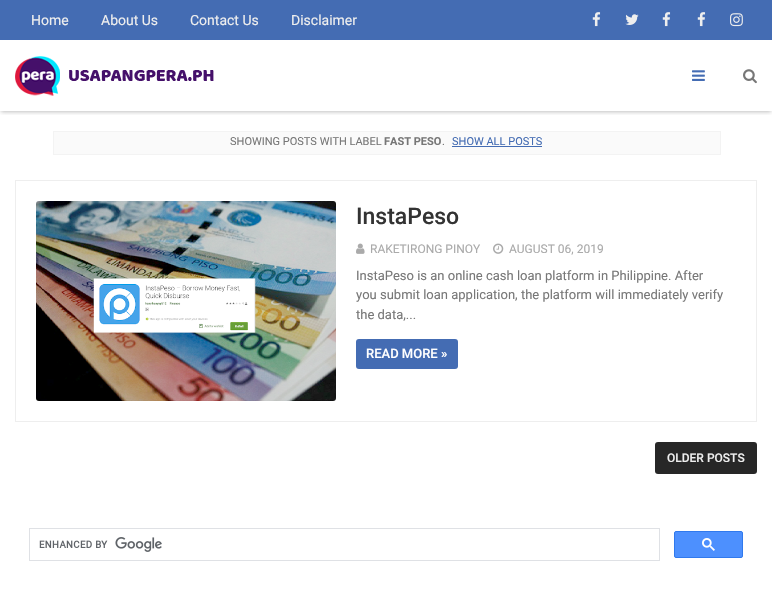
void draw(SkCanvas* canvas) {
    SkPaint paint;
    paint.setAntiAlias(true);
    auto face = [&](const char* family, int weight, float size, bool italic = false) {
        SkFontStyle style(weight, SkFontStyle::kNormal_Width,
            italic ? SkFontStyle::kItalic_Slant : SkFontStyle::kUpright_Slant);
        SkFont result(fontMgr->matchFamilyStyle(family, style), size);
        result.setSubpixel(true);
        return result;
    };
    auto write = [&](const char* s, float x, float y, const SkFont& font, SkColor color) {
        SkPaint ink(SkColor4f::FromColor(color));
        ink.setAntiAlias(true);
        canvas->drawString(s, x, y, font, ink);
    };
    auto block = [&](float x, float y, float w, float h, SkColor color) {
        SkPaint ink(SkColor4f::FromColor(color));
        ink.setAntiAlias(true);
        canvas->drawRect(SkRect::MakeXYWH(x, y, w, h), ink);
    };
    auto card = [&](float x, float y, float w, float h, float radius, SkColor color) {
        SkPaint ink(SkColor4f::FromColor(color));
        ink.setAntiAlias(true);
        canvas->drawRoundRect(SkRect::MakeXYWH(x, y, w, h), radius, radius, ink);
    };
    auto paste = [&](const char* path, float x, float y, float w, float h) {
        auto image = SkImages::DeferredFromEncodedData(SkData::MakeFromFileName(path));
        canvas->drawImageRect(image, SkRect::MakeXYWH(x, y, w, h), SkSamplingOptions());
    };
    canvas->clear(SK_ColorWHITE);
    block(0, 0, 772, 40, SkColorSetRGB(68, 108, 179));
    auto kFont1 = face("Roboto", 400, 14);
    write("Home", 31, 25, kFont1, SkColorSetRGB(238, 238, 238));
    write("About Us", 101, 25, kFont1, SkColorSetRGB(238, 238, 238));
    write("Contact Us", 190, 25, kFont1, SkColorSetRGB(238, 238, 238));
    write("Disclaimer", 291, 25, kFont1, SkColorSetRGB(238, 238, 238));
    paste("pic1.png", 592, 12, 9, 15);
    paste("pic2.png", 625, 14, 14, 11);
    paste("pic1.png", 662, 12, 9, 15);
    paste("pic1.png", 697, 12, 9, 15);
    paste("pic3.png", 730, 13, 13, 14);
    canvas->save();
    canvas->clipRect(SkRect::MakeXYWH(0, 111, 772, 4));
    paint.setColor(SkColorSetARGB(64, 0, 0, 0));
    paint.setMaskFilter(SkMaskFilter::MakeBlur(kNormal_SkBlurStyle, 2));
    canvas->drawRect(SkRect::MakeXYWH(1, 44, 770, 68), paint);
    paint.setMaskFilter(nullptr);
    canvas->restore();
    paste("pic4.png", 15, 56, 199, 40);
    paste("pic5.png", 692, 70, 13, 11);
    paste("pic6.png", 743, 69, 14, 15);
    paint.setStyle(SkPaint::kStroke_Style);
    paint.setStrokeWidth(1);
    paint.setColor(SkColorSetRGB(243, 243, 243));
    canvas->drawRect(SkRect::MakeXYWH(53.5f, 131.5f, 667, 23), paint);
    block(54, 132, 666, 22, SkColorSetRGB(250, 250, 250));
    auto kFont2 = face("Roboto", 400, 11);
    write("SHOWING POSTS WITH LABEL", 230, 145, kFont2, SkColorSetRGB(119, 119, 119));
    auto kFont3 = face("Roboto", 700, 11);
    write("FAST PESO", 384, 145, kFont3, SkColorSetRGB(119, 119, 119));
    write(".", 442, 145, kFont2, SkColorSetRGB(119, 119, 119));
    write("SHOW ALL POSTS", 452, 145, kFont2, SkColorSetRGB(68, 108, 179));
    block(452, 146, 90, 1, SkColorSetRGB(68, 108, 179));
    paint.setColor(SkColorSetRGB(238, 238, 238));
    canvas->drawRect(SkRect::MakeXYWH(15.5f, 180.5f, 741, 241), paint);
    paste("pic7.png", 36, 201, 300, 200);
    auto kFont4 = face("Roboto", 500, 23);
    write("InstaPeso", 356, 224, kFont4, SkColorSetRGB(51, 51, 51));
    paste("pic8.png", 356, 243, 9, 11);
    auto kFont5 = face("Roboto", 400, 12);
    write("RAKETIRONG PINOY", 370, 253, kFont5, SkColorSetRGB(170, 170, 170));
    paste("pic9.png", 493, 243, 11, 11);
    write("AUGUST 06, 2019", 509, 253, kFont5, SkColorSetRGB(170, 170, 170));
    auto kFont6 = face("Roboto", 400, 13);
    write("InstaPeso is an online cash loan platform in Philippine. After", 356, 280, kFont6, SkColorSetRGB(119, 119, 119));
    write("you submit loan application, the platform will immediately verify", 356, 299, kFont6, SkColorSetRGB(119, 119, 119));
    write("the data,...", 356, 319, kFont6, SkColorSetRGB(119, 119, 119));
    card(356, 339, 102, 30, 3, SkColorSetRGB(68, 108, 179));
    auto kFont7 = face("Roboto", 500, 13);
    write("READ MORE »", 366, 358, kFont7, SK_ColorWHITE);
    card(655, 442, 102, 32, 3, SkColorSetRGB(39, 39, 39));
    auto kFont8 = face("Roboto", 500, 12);
    write("OLDER POSTS", 667, 462, kFont8, SkColorSetRGB(238, 238, 238));
    paint.setColor(SkColorSetRGB(223, 225, 229));
    canvas->drawRect(SkRect::MakeXYWH(29.5f, 528.5f, 630, 32), paint);
    paste("pic10.png", 39, 537, 123, 15);
    paint.setStyle(SkPaint::kFill_Style);
    paint.setColor(SkColorSetRGB(77, 144, 254));
    canvas->drawRoundRect(SkRect::MakeXYWH(674.5f, 531.5f, 68, 26), 1.5f, 1.5f, paint);
    paint.setStyle(SkPaint::kStroke_Style);
    paint.setColor(SkColorSetRGB(48, 121, 237));
    canvas->drawRoundRect(SkRect::MakeXYWH(674.5f, 531.5f, 68, 26), 1.5f, 1.5f, paint);
    paste("pic11.png", 702, 538, 13, 13);
}
